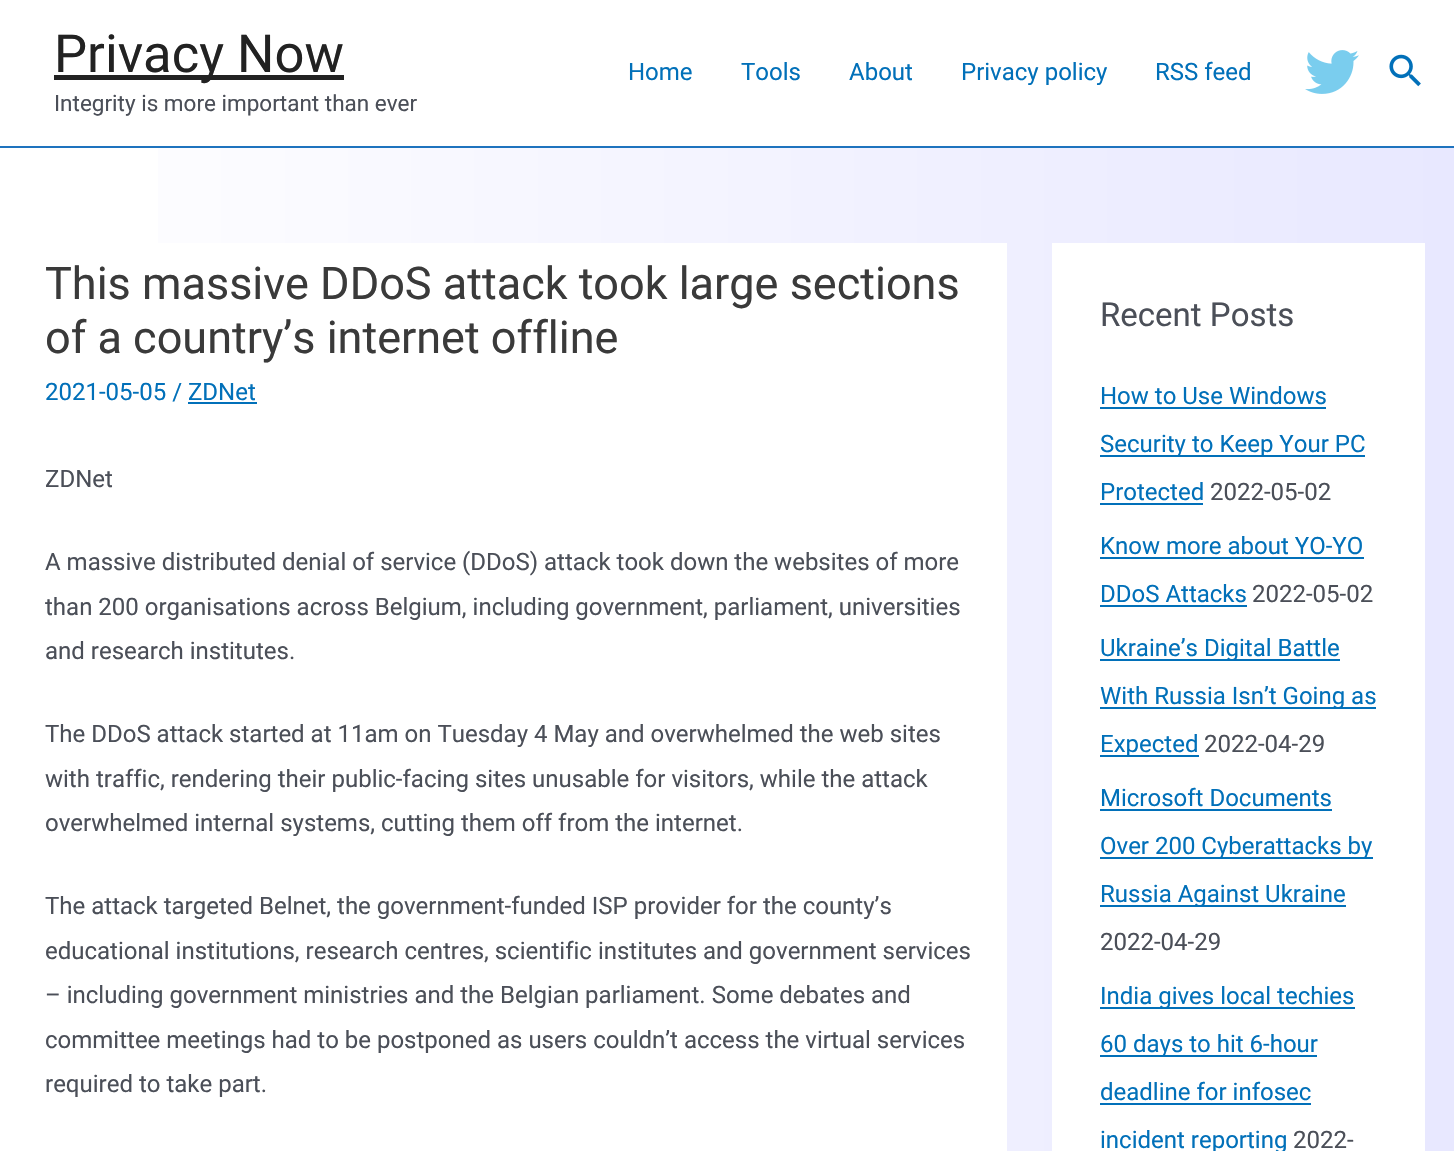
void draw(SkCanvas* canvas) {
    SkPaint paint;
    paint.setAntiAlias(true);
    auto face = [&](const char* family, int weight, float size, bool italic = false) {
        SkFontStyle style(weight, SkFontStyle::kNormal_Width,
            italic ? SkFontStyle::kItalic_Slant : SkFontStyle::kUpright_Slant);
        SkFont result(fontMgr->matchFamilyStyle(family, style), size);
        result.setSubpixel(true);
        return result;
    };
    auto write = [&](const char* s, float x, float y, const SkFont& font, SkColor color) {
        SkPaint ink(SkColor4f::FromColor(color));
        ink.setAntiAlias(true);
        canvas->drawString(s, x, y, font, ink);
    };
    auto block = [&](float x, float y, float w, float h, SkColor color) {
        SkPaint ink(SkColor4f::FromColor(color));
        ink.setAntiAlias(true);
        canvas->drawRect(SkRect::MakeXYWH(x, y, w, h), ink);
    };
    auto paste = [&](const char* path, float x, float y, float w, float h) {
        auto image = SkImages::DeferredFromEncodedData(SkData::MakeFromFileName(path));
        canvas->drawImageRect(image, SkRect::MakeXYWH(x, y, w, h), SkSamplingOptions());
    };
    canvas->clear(SK_ColorWHITE);
    {
        const SkColor colors[] = {SK_ColorWHITE, SkColorSetRGB(232, 232, 255)};
        const float stops[] = {0, 1};
        const SkPoint ends[] = {{0, 863}, {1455, 863}};
        paint.setShader(SkGradientShader::MakeLinear(ends, colors, stops, 2, SkTileMode::kClamp));
        paint.setAlpha(255);
    }
    canvas->drawRect(SkRect::MakeXYWH(158, 148, 1296, 1003), paint);
    block(0, 146, 1454, 2, SkColorSetRGB(30, 115, 190));
    block(54, 75, 290, 5, SkColorSetRGB(34, 34, 34));
    auto kFont1 = face("Roboto", 400, 52.5f);
    write("Privacy Now", 54, 72, kFont1, SkColorSetRGB(34, 34, 34));
    auto kFont2 = face("Roboto", 400, 22.5f);
    write("Integrity is more important than ever", 54, 111, kFont2, SkColorSetRGB(75, 79, 88));
    auto kFont3 = face("Roboto", 400, 24);
    write("Home", 628, 80, kFont3, SkColorSetRGB(1, 112, 185));
    write("Tools", 741, 80, kFont3, SkColorSetRGB(1, 112, 185));
    write("About", 849, 80, kFont3, SkColorSetRGB(1, 112, 185));
    write("Privacy policy", 961, 80, kFont3, SkColorSetRGB(1, 112, 185));
    write("RSS feed", 1155, 80, kFont3, SkColorSetRGB(1, 112, 185));
    paste("pic1.png", 1305, 50, 54, 44);
    paste("pic2.png", 1389, 54, 32, 33);
    block(158, 243, 849, 908, SK_ColorWHITE);
    auto kFont4 = face("Roboto", 400, 45);
    write("This massive DDoS attack took large sections", 45, 299, kFont4, SkColorSetRGB(58, 58, 58));
    write("of a country’s internet offline", 45, 353, kFont4, SkColorSetRGB(58, 58, 58));
    write("2021-05-05 / ZDNet", 45, 400, kFont3, SkColorSetRGB(1, 112, 185));
    block(188, 402, 69, 2, SkColorSetRGB(1, 112, 185));
    write("ZDNet", 45, 487, kFont3, SkColorSetRGB(75, 79, 88));
    write("A massive distributed denial of service (DDoS) attack took down the websites of more", 45, 570, kFont3, SkColorSetRGB(75, 79, 88));
    write("than 200 organisations across Belgium, including government, parliament, universities", 45, 615, kFont3, SkColorSetRGB(75, 79, 88));
    write("and research institutes.", 45, 659, kFont3, SkColorSetRGB(75, 79, 88));
    write("The DDoS attack started at 11am on Tuesday 4 May and overwhelmed the web sites", 45, 742, kFont3, SkColorSetRGB(75, 79, 88));
    write("with traffic, rendering their public-facing sites unusable for visitors, while the attack", 45, 787, kFont3, SkColorSetRGB(75, 79, 88));
    write("overwhelmed internal systems, cutting them off from the internet.", 45, 831, kFont3, SkColorSetRGB(75, 79, 88));
    write("The attack targeted Belnet, the government-funded ISP provider for the county’s", 45, 914, kFont3, SkColorSetRGB(75, 79, 88));
    write("educational institutions, research centres, scientific institutes and government services", 45, 959, kFont3, SkColorSetRGB(75, 79, 88));
    write("– including government ministries and the Belgian parliament. Some debates and", 45, 1003, kFont3, SkColorSetRGB(75, 79, 88));
    write("committee meetings had to be postponed as users couldn’t access the virtual services", 45, 1048, kFont3, SkColorSetRGB(75, 79, 88));
    write("required to take part.", 45, 1092, kFont3, SkColorSetRGB(75, 79, 88));
    block(1052, 243, 373, 908, SK_ColorWHITE);
    auto kFont5 = face("Roboto", 400, 33);
    write("Recent Posts", 1100, 326, kFont5, SkColorSetRGB(75, 79, 88));
    write("How to Use Windows", 1100, 404, kFont3, SkColorSetRGB(1, 112, 185));
    block(1100, 407, 226, 2, SkColorSetRGB(1, 112, 185));
    block(1100, 455, 265, 2, SkColorSetRGB(1, 112, 185));
    write("Security to Keep Your PC", 1100, 452, kFont3, SkColorSetRGB(1, 112, 185));
    write("Protected", 1100, 500, kFont3, SkColorSetRGB(1, 112, 185));
    block(1100, 503, 103, 2, SkColorSetRGB(1, 112, 185));
    write("2022-05-02", 1210, 500, kFont3, SkColorSetRGB(75, 79, 88));
    write("Know more about YO-YO", 1100, 554, kFont3, SkColorSetRGB(1, 112, 185));
    block(1100, 557, 264, 2, SkColorSetRGB(1, 112, 185));
    write("DDoS Attacks", 1100, 602, kFont3, SkColorSetRGB(1, 112, 185));
    block(1100, 605, 147, 2, SkColorSetRGB(1, 112, 185));
    write("2022-05-02", 1252, 602, kFont3, SkColorSetRGB(75, 79, 88));
    block(1100, 659, 240, 2, SkColorSetRGB(1, 112, 185));
    write("Ukraine’s Digital Battle", 1100, 656, kFont3, SkColorSetRGB(1, 112, 185));
    block(1100, 707, 276, 2, SkColorSetRGB(1, 112, 185));
    write("With Russia Isn’t Going as", 1100, 704, kFont3, SkColorSetRGB(1, 112, 185));
    block(1100, 755, 99, 2, SkColorSetRGB(1, 112, 185));
    write("Expected", 1100, 752, kFont3, SkColorSetRGB(1, 112, 185));
    write("2022-04-29", 1204, 752, kFont3, SkColorSetRGB(75, 79, 88));
    write("Microsoft Documents", 1100, 806, kFont3, SkColorSetRGB(1, 112, 185));
    block(1100, 809, 232, 2, SkColorSetRGB(1, 112, 185));
    block(1100, 857, 273, 2, SkColorSetRGB(1, 112, 185));
    write("Over 200 Cyberattacks by", 1100, 854, kFont3, SkColorSetRGB(1, 112, 185));
    block(1100, 905, 246, 2, SkColorSetRGB(1, 112, 185));
    write("Russia Against Ukraine", 1100, 902, kFont3, SkColorSetRGB(1, 112, 185));
    write("2022-04-29", 1100, 950, kFont3, SkColorSetRGB(75, 79, 88));
    block(1100, 1007, 255, 2, SkColorSetRGB(1, 112, 185));
    write("India gives local techies", 1100, 1004, kFont3, SkColorSetRGB(1, 112, 185));
    block(1100, 1055, 217, 2, SkColorSetRGB(1, 112, 185));
    write("60 days to hit 6-hour", 1100, 1052, kFont3, SkColorSetRGB(1, 112, 185));
    write("deadline for infosec", 1100, 1100, kFont3, SkColorSetRGB(1, 112, 185));
    block(1100, 1103, 211, 2, SkColorSetRGB(1, 112, 185));
    write("incident reporting", 1100, 1148, kFont3, SkColorSetRGB(1, 112, 185));
    write("2022-", 1293, 1148, kFont3, SkColorSetRGB(75, 79, 88));
}
